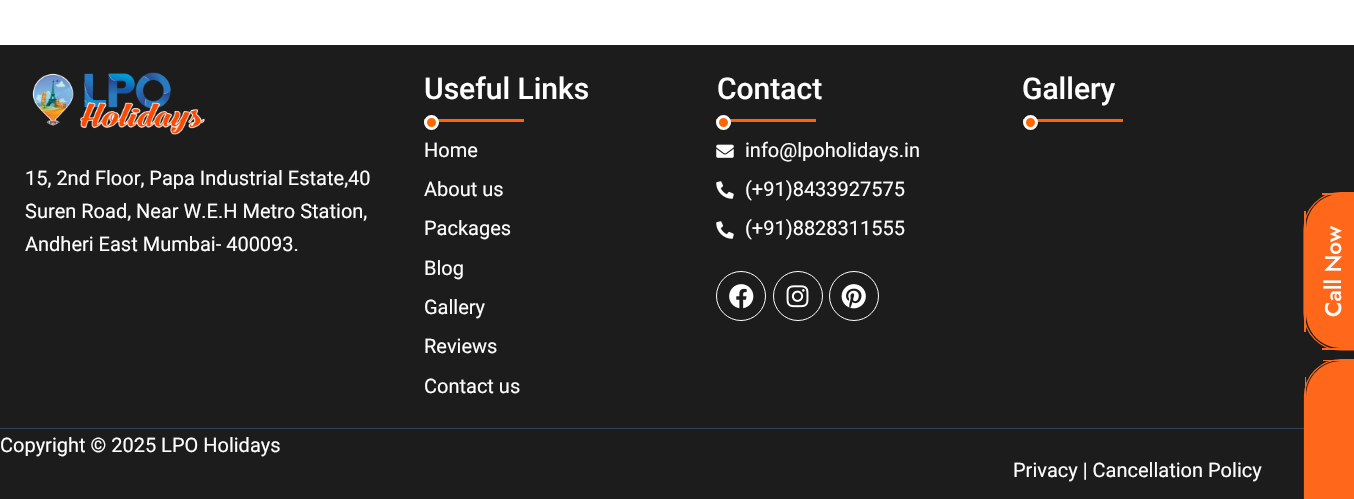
void draw(SkCanvas* canvas) {
    SkPaint paint;
    paint.setAntiAlias(true);
    auto face = [&](const char* family, int weight, float size, bool italic = false) {
        SkFontStyle style(weight, SkFontStyle::kNormal_Width,
            italic ? SkFontStyle::kItalic_Slant : SkFontStyle::kUpright_Slant);
        SkFont result(fontMgr->matchFamilyStyle(family, style), size);
        result.setSubpixel(true);
        return result;
    };
    auto write = [&](const char* s, float x, float y, const SkFont& font, SkColor color) {
        SkPaint ink(SkColor4f::FromColor(color));
        ink.setAntiAlias(true);
        canvas->drawString(s, x, y, font, ink);
    };
    auto block = [&](float x, float y, float w, float h, SkColor color) {
        SkPaint ink(SkColor4f::FromColor(color));
        ink.setAntiAlias(true);
        canvas->drawRect(SkRect::MakeXYWH(x, y, w, h), ink);
    };
    auto paste = [&](const char* path, float x, float y, float w, float h) {
        auto image = SkImages::DeferredFromEncodedData(SkData::MakeFromFileName(path));
        canvas->drawImageRect(image, SkRect::MakeXYWH(x, y, w, h), SkSamplingOptions());
    };
    canvas->clear(SK_ColorWHITE);
    block(0, 45, 1354, 383, SkColorSetRGB(28, 28, 28));
    paste("pic1.png", 32, 72, 173, 63);
    auto kFont1 = face("Roboto", 400, 20);
    write("15, 2nd Floor, Papa Industrial Estate,40", 25, 185, kFont1, SK_ColorWHITE);
    write("Suren Road, Near W.E.H Metro Station,", 25, 218, kFont1, SK_ColorWHITE);
    write("Andheri East Mumbai- 400093.", 25, 251, kFont1, SK_ColorWHITE);
    auto kFont2 = face("Roboto", 500, 30);
    write("Useful Links", 424, 99, kFont2, SK_ColorWHITE);
    block(424, 119, 100, 3, SkColorSetRGB(255, 102, 0));
    paint.setColor(SkColorSetRGB(255, 102, 0));
    canvas->drawCircle(431.5f, 122.5f, 6, paint);
    paint.setStyle(SkPaint::kStroke_Style);
    paint.setStrokeWidth(3);
    paint.setColor(SK_ColorWHITE);
    canvas->drawCircle(431.5f, 122.5f, 6, paint);
    write("Home", 424, 157, kFont1, SK_ColorWHITE);
    write("About us", 424, 196, kFont1, SK_ColorWHITE);
    write("Packages", 424, 235, kFont1, SK_ColorWHITE);
    write("Blog", 424, 275, kFont1, SK_ColorWHITE);
    write("Gallery", 424, 314, kFont1, SK_ColorWHITE);
    write("Reviews", 424, 353, kFont1, SK_ColorWHITE);
    write("Contact us", 424, 393, kFont1, SK_ColorWHITE);
    write("Contact", 717, 99, kFont2, SK_ColorWHITE);
    block(716, 119, 100, 3, SkColorSetRGB(255, 102, 0));
    paint.setStyle(SkPaint::kFill_Style);
    paint.setColor(SkColorSetRGB(255, 102, 0));
    canvas->drawCircle(723.5f, 122.5f, 6, paint);
    paint.setStyle(SkPaint::kStroke_Style);
    paint.setColor(SK_ColorWHITE);
    canvas->drawCircle(723.5f, 122.5f, 6, paint);
    paste("pic2.png", 716, 144, 18, 14);
    write("info@lpoholidays.in", 745, 157, kFont1, SK_ColorWHITE);
    paste("pic3.png", 716, 181, 18, 18);
    write("(+91)8433927575", 745, 196, kFont1, SK_ColorWHITE);
    paste("pic3.png", 716, 221, 18, 18);
    write("(+91)8828311555", 745, 235, kFont1, SK_ColorWHITE);
    paint.setStrokeWidth(1);
    canvas->drawCircle(741, 296, 24.5f, paint);
    paste("pic4.png", 729, 284, 25, 25);
    canvas->drawCircle(798, 296, 24.5f, paint);
    paste("pic5.png", 786, 285, 23, 23);
    canvas->drawCircle(854, 296, 24.5f, paint);
    paste("pic6.png", 841, 284, 25, 25);
    write("Gallery", 1022, 99, kFont2, SK_ColorWHITE);
    block(1023, 119, 100, 3, SkColorSetRGB(255, 102, 0));
    paint.setStyle(SkPaint::kFill_Style);
    paint.setColor(SkColorSetRGB(255, 102, 0));
    canvas->drawCircle(1030.5f, 122.5f, 6, paint);
    paint.setStyle(SkPaint::kStroke_Style);
    paint.setStrokeWidth(3);
    paint.setColor(SK_ColorWHITE);
    canvas->drawCircle(1030.5f, 122.5f, 6, paint);
    block(0, 429, 1304, 70, SkColorSetRGB(28, 28, 28));
    block(0, 428, 1304, 1, SkColorSetRGB(51, 65, 85));
    write("Copyright © 2025 LPO Holidays", 0, 452, kFont1, SK_ColorWHITE);
    write("Privacy | Cancellation Policy", 1013, 477, kFont1, SK_ColorWHITE);
    paint.setStyle(SkPaint::kFill_Style);
    paint.setColor(SkColorSetRGB(255, 104, 26));
    canvas->drawPath(SkPathBuilder().moveTo(1306, 313).lineTo(1306, 229).cubicTo(1306, 210, 1321, 194, 1341, 194).lineTo(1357, 194).lineTo(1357, 348).lineTo(1341, 348).cubicTo(1321, 348, 1306, 332, 1306, 313).close().detach(), paint);
    paint.setStyle(SkPaint::kStroke_Style);
    paint.setStrokeWidth(1.2f);
    canvas->drawPath(SkPathBuilder().moveTo(1304, 313).lineTo(1304, 229.5f).cubicTo(1304, 209, 1320.5f, 192.5f, 1340.5f, 192.5f).lineTo(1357.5f, 192.5f).lineTo(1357.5f, 350).lineTo(1340.5f, 350).cubicTo(1320.5f, 350, 1304, 333.5f, 1304, 313).close().detach(), paint);
    block(1304, 211, 2, 121, SkColorSetRGB(255, 104, 26));
    block(1322, 193, 32, 2, SkColorSetRGB(255, 104, 26));
    block(1322, 348, 32, 2, SkColorSetRGB(255, 104, 26));
    auto kFont3 = face("Jost", 500, 22.5f);
    canvas->save();
    canvas->rotate(-90, 1341, 317);
    write("Call Now", 1341, 317, kFont3, SK_ColorWHITE);
    canvas->restore();
    paint.setStyle(SkPaint::kFill_Style);
    canvas->drawPath(SkPathBuilder().moveTo(1306, 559).lineTo(1306, 396).cubicTo(1306, 377, 1322, 361, 1341, 361).lineTo(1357, 361).lineTo(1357, 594).lineTo(1341, 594).cubicTo(1322, 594, 1306, 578, 1306, 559).close().detach(), paint);
    paint.setStyle(SkPaint::kStroke_Style);
    canvas->drawPath(SkPathBuilder().moveTo(1304.5f, 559).lineTo(1304.5f, 396).cubicTo(1304.5f, 376, 1321, 359.5f, 1341, 359.5f).lineTo(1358, 359.5f).lineTo(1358, 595.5f).lineTo(1341, 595.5f).cubicTo(1321, 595.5f, 1304.5f, 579, 1304.5f, 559).close().detach(), paint);
    block(1305, 377, 1, 122, SkColorSetRGB(255, 104, 26));
    block(1323, 360, 31, 1, SkColorSetRGB(255, 104, 26));
}
